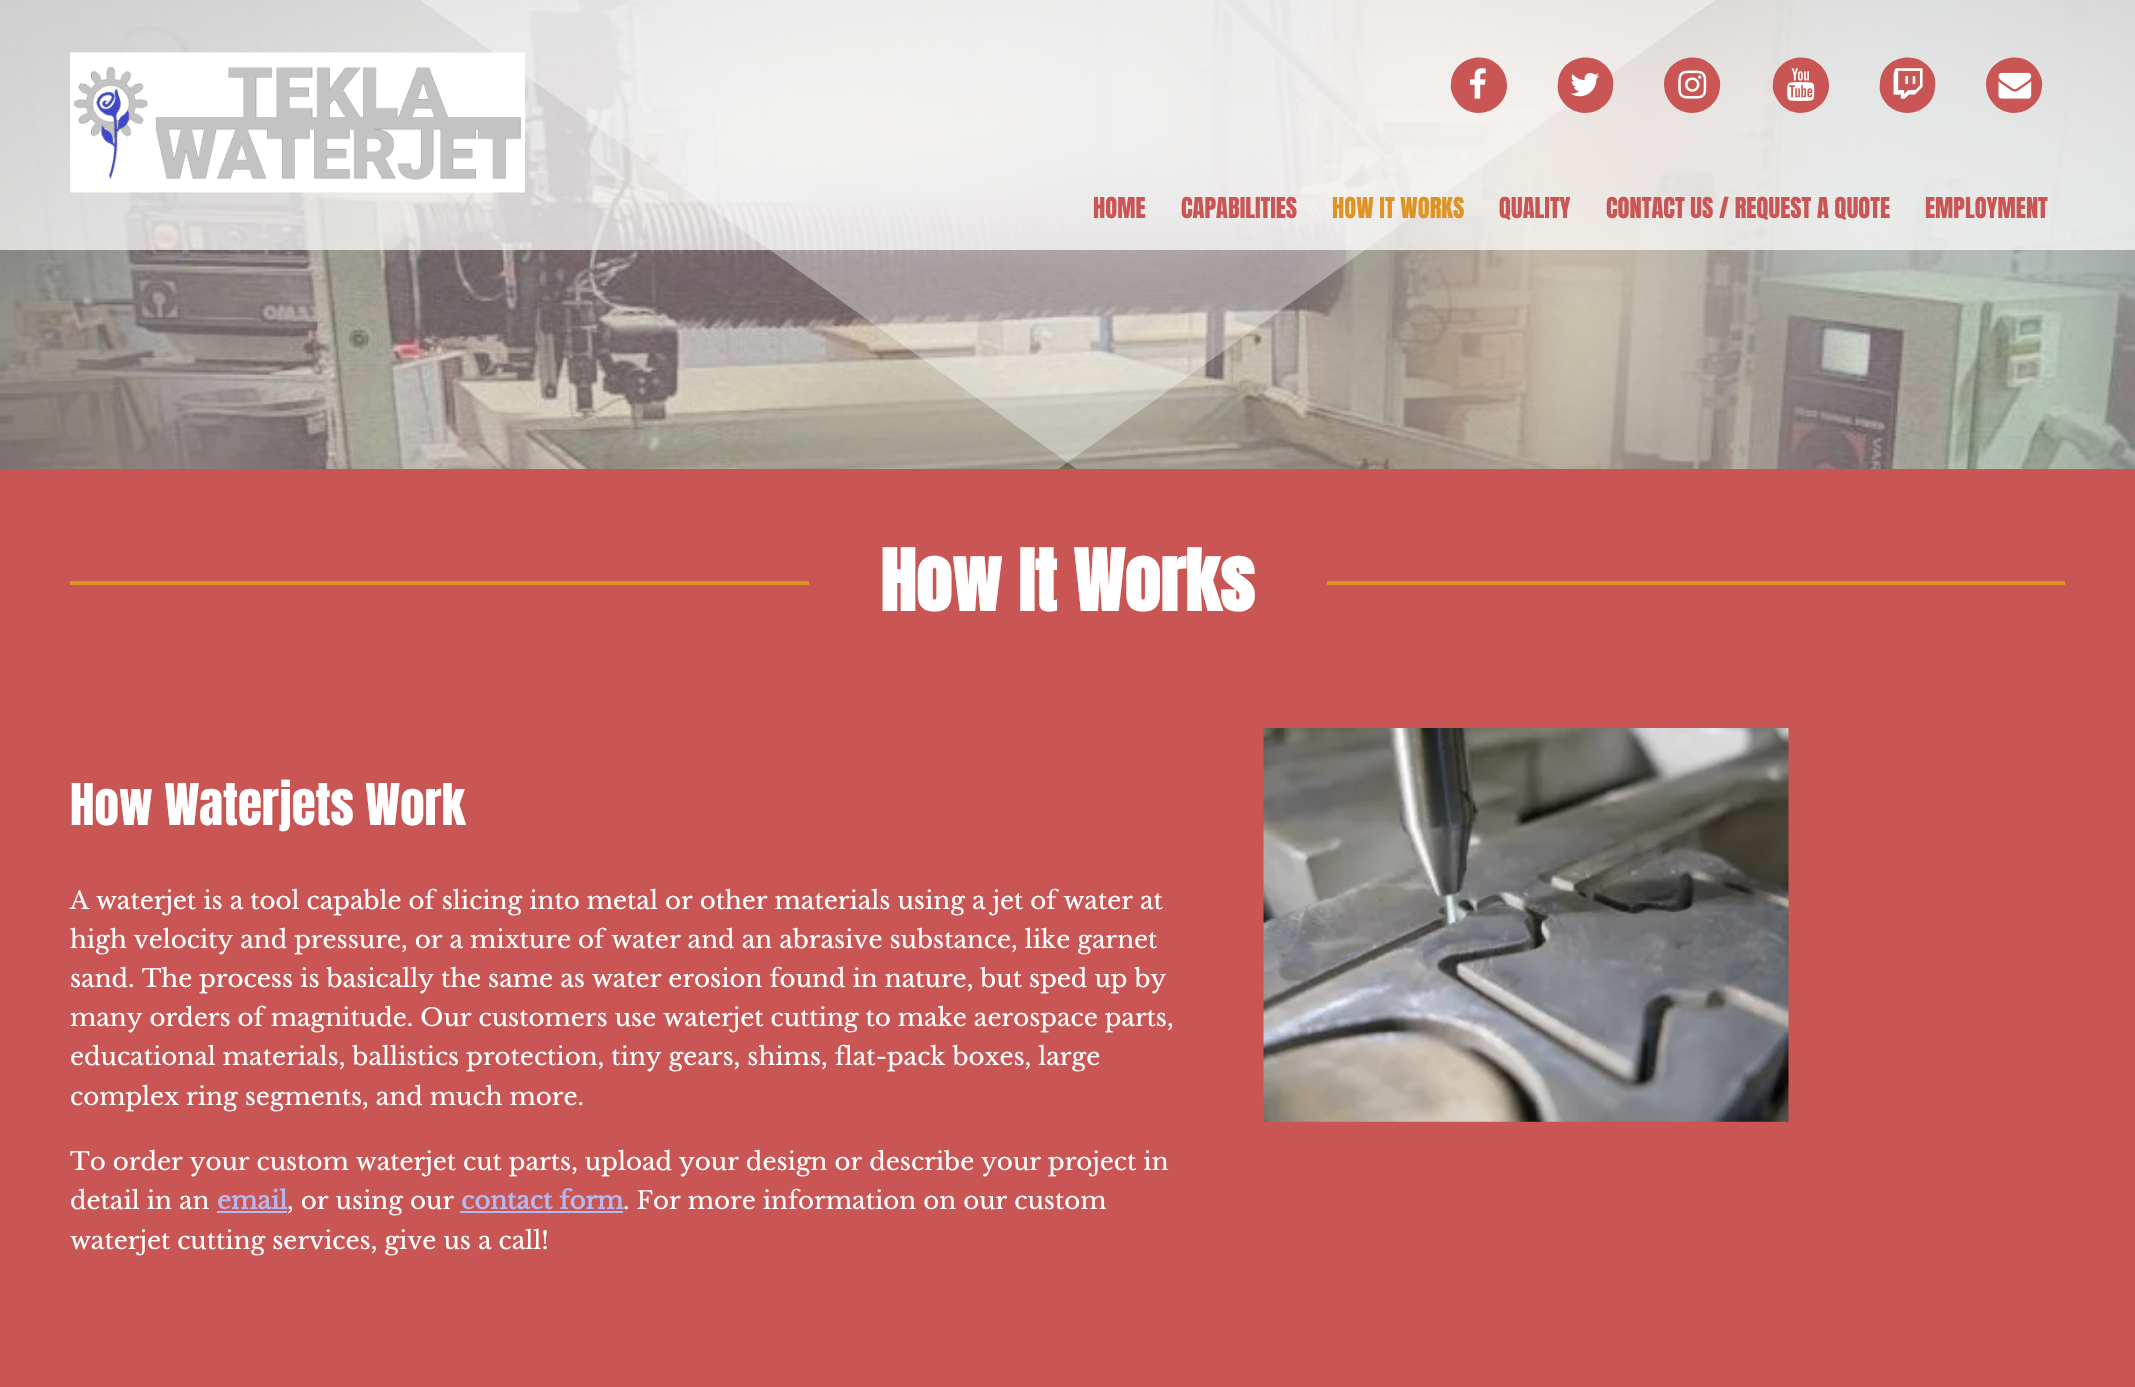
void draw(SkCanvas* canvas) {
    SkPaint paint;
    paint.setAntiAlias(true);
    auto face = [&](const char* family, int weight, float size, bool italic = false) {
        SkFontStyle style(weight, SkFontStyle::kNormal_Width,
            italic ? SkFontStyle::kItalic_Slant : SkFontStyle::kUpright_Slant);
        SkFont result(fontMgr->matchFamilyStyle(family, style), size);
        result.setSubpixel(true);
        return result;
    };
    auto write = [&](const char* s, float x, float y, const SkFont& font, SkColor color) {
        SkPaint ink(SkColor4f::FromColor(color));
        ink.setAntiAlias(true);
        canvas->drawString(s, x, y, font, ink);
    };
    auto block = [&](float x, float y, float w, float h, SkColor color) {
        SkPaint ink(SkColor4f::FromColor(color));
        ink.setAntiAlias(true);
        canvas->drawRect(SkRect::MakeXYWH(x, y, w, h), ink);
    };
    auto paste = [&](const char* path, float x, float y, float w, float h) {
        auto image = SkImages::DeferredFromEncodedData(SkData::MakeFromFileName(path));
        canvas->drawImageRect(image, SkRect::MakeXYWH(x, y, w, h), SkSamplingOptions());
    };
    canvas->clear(SK_ColorWHITE);
    paste("pic1.png", 0, 0, 2135, 469);
    paint.setColor(SkColorSetARGB(89, 255, 255, 255));
    canvas->drawPath(SkPathBuilder().moveTo(420, 0).lineTo(2135, 0).lineTo(2135, 1225).close().detach(), paint);
    canvas->drawPath(SkPathBuilder().moveTo(0, 0).lineTo(1715, 0).lineTo(0, 1225).close().detach(), paint);
    block(0, 0, 2135, 250, SkColorSetARGB(179, 255, 255, 255));
    paste("pic2.png", 70, 52, 455, 141);
    paint.setColor(SkColorSetRGB(201, 86, 84));
    canvas->drawPath(SkPathBuilder().moveTo(1503, 71).cubicTo(1506, 76, 1507, 81, 1507, 87).cubicTo(1505, 114, 1468, 123, 1455, 99).cubicTo(1452, 94, 1450, 89, 1451, 83).cubicTo(1453, 56, 1489, 48, 1503, 71).close().detach(), paint);
    paste("pic3.png", 1470, 68, 16, 31);
    canvas->drawPath(SkPathBuilder().moveTo(1610, 71).cubicTo(1613, 76, 1614, 81, 1613, 87).cubicTo(1612, 114, 1575, 123, 1561, 99).cubicTo(1558, 94, 1557, 89, 1558, 83).cubicTo(1559, 56, 1596, 48, 1610, 71).close().detach(), paint);
    paste("pic4.png", 1570, 72, 30, 25);
    canvas->drawPath(SkPathBuilder().moveTo(1716, 71).cubicTo(1719, 76, 1721, 81, 1720, 87).cubicTo(1718, 114, 1682, 123, 1668, 99).cubicTo(1665, 94, 1664, 89, 1664, 83).cubicTo(1666, 56, 1703, 48, 1716, 71).close().detach(), paint);
    paste("pic5.png", 1678, 70, 29, 29);
    canvas->drawPath(SkPathBuilder().moveTo(1825, 71).cubicTo(1828, 76, 1829, 81, 1829, 87).cubicTo(1827, 114, 1790, 123, 1777, 99).cubicTo(1774, 94, 1772, 89, 1773, 83).cubicTo(1775, 56, 1811, 48, 1825, 71).close().detach(), paint);
    paste("pic6.png", 1787, 68, 28, 33);
    canvas->drawPath(SkPathBuilder().moveTo(1932, 71).cubicTo(1935, 76, 1936, 81, 1935, 87).cubicTo(1934, 114, 1897, 123, 1883, 99).cubicTo(1880, 94, 1879, 89, 1880, 83).cubicTo(1881, 56, 1918, 48, 1932, 71).close().detach(), paint);
    paste("pic7.png", 1893, 68, 30, 31);
    canvas->drawPath(SkPathBuilder().moveTo(2038, 71).cubicTo(2041, 76, 2043, 81, 2042, 87).cubicTo(2040, 114, 2004, 123, 1990, 99).cubicTo(1987, 94, 1986, 89, 1986, 83).cubicTo(1988, 56, 2025, 48, 2038, 71).close().detach(), paint);
    paste("pic8.png", 1998, 72, 34, 27);
    auto kFont1 = face("Anton", 400, 24.5f);
    write("HOME", 1093, 218, kFont1, SkColorSetRGB(201, 86, 84));
    write("CAPABILITIES", 1181, 218, kFont1, SkColorSetRGB(201, 86, 84));
    write("HOW IT WORKS", 1332, 218, kFont1, SkColorSetRGB(221, 148, 37));
    write("QUALITY", 1499, 218, kFont1, SkColorSetRGB(201, 86, 84));
    write("CONTACT US / REQUEST A QUOTE", 1606, 218, kFont1, SkColorSetRGB(201, 86, 84));
    write("EMPLOYMENT", 1925, 218, kFont1, SkColorSetRGB(201, 86, 84));
    block(0, 469, 2135, 918, SkColorSetRGB(201, 86, 84));
    block(70, 581, 1995, 4, SkColorSetRGB(221, 148, 37));
    block(809, 581, 518, 4, SkColorSetRGB(201, 86, 84));
    auto kFont2 = face("Anton", 700, 71.75f);
    write("How It Works", 880, 611, kFont2, SK_ColorWHITE);
    auto kFont3 = face("Anton", 400, 49);
    write("How Waterjets Work", 70, 825, kFont3, SK_ColorWHITE);
    auto kFont4 = face("Libre Baskerville", 400, 24.5f);
    write("A waterjet is a tool capable of slicing into metal or other materials using a jet of water at", 70, 909, kFont4, SK_ColorWHITE);
    write("high velocity and pressure, or a mixture of water and an abrasive substance, like garnet", 70, 948, kFont4, SK_ColorWHITE);
    write("sand. The process is basically the same as water erosion found in nature, but sped up by", 70, 987, kFont4, SK_ColorWHITE);
    write("many orders of magnitude. Our customers use waterjet cutting to make aerospace parts,", 70, 1026, kFont4, SK_ColorWHITE);
    write("educational materials, ballistics protection, tiny gears, shims, flat-pack boxes, large", 70, 1065, kFont4, SK_ColorWHITE);
    write("complex ring segments, and much more.", 70, 1105, kFont4, SK_ColorWHITE);
    write("To order your custom waterjet cut parts, upload your design or describe your project in", 70, 1170, kFont4, SK_ColorWHITE);
    write("detail in an", 70, 1209, kFont4, SK_ColorWHITE);
    auto kFont5 = face("Libre Baskerville", 700, 24.5f);
    write("email", 217, 1209, kFont5, SkColorSetRGB(180, 184, 238));
    block(217, 1211, 70, 2, SkColorSetRGB(180, 184, 238));
    write(", or using our", 287, 1209, kFont4, SK_ColorWHITE);
    write("contact form", 461, 1209, kFont5, SkColorSetRGB(180, 184, 238));
    block(460, 1211, 163, 2, SkColorSetRGB(180, 184, 238));
    write(". For more information on our custom", 623, 1209, kFont4, SK_ColorWHITE);
    write("waterjet cutting services, give us a call!", 70, 1249, kFont4, SK_ColorWHITE);
    paste("pic9.png", 1263, 728, 526, 394);
}
